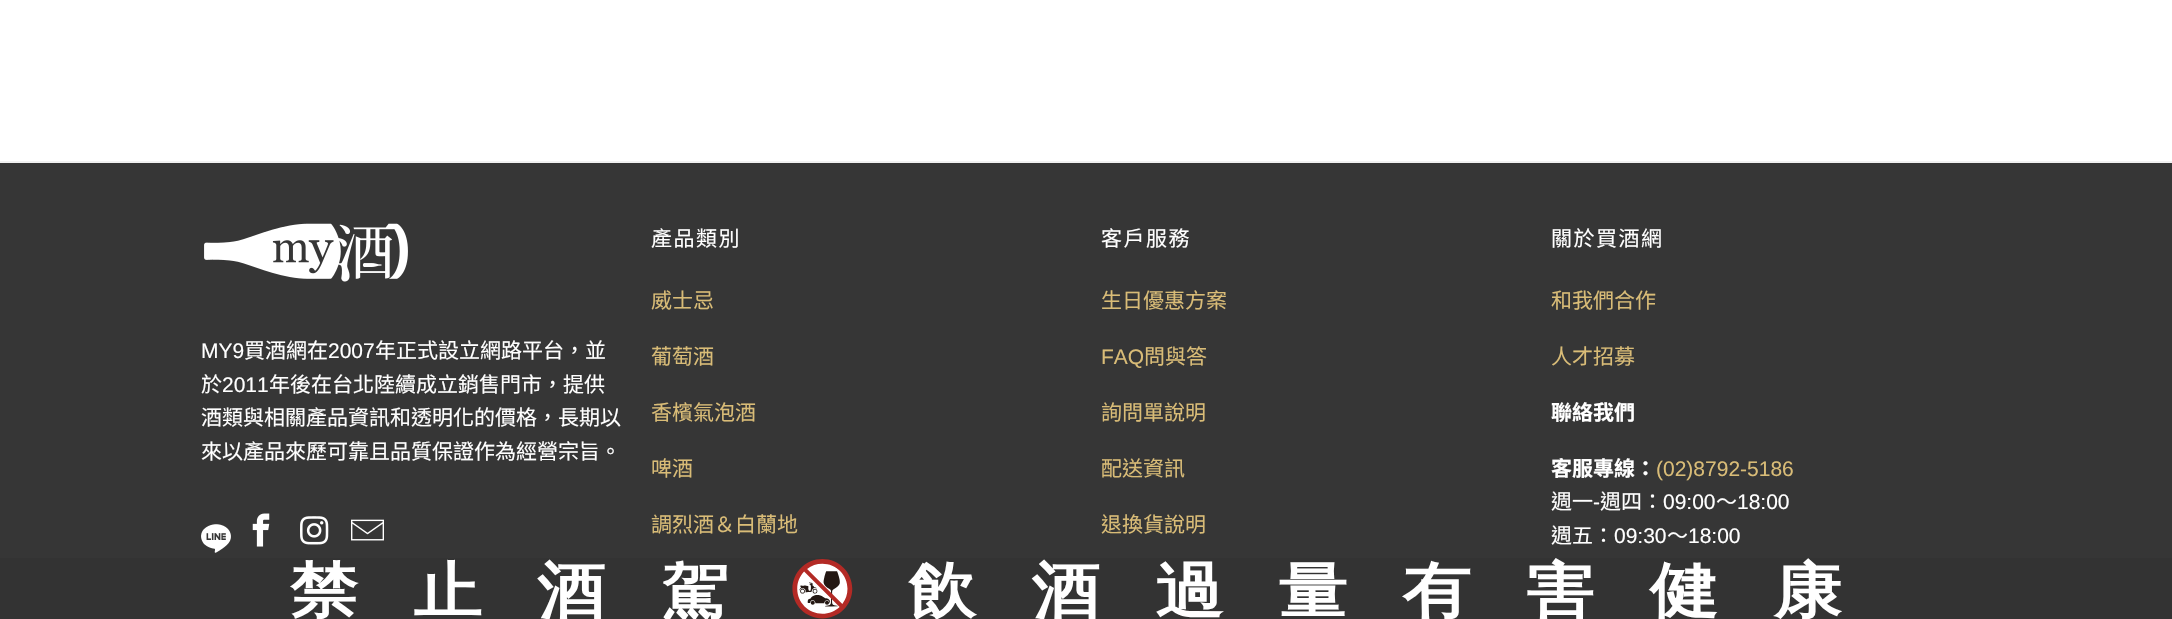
void draw(SkCanvas* canvas) {
    SkPaint paint;
    paint.setAntiAlias(true);
    auto face = [&](const char* family, int weight, float size, bool italic = false) {
        SkFontStyle style(weight, SkFontStyle::kNormal_Width,
            italic ? SkFontStyle::kItalic_Slant : SkFontStyle::kUpright_Slant);
        SkFont result(fontMgr->matchFamilyStyle(family, style), size);
        result.setSubpixel(true);
        return result;
    };
    auto write = [&](const char* s, float x, float y, const SkFont& font, SkColor color) {
        SkPaint ink(SkColor4f::FromColor(color));
        ink.setAntiAlias(true);
        canvas->drawString(s, x, y, font, ink);
    };
    auto writeSpaced = [&](const char* s, float x, float y, const SkFont& font, const SkPaint& ink, float letter, float word) {
        std::vector<SkGlyphID> glyphs(font.countText(s, strlen(s), SkTextEncoding::kUTF8));
        std::vector<float> xs(glyphs.size());
        font.textToGlyphs(s, strlen(s), SkTextEncoding::kUTF8, glyphs);
        font.getXPos(glyphs, xs, x);
        float extra = 0;
        for (size_t i = 0; i < glyphs.size(); i++) {
            xs[i] += extra;
            extra += letter + word * (glyphs[i] == font.unicharToGlyph(' '));
        }
        canvas->drawTextBlob(SkTextBlob::MakeFromPosHGlyphs(glyphs, xs, y, font), 0, 0, ink);
    };
    auto block = [&](float x, float y, float w, float h, SkColor color) {
        SkPaint ink(SkColor4f::FromColor(color));
        ink.setAntiAlias(true);
        canvas->drawRect(SkRect::MakeXYWH(x, y, w, h), ink);
    };
    auto paste = [&](const char* path, float x, float y, float w, float h) {
        auto image = SkImages::DeferredFromEncodedData(SkData::MakeFromFileName(path));
        canvas->drawImageRect(image, SkRect::MakeXYWH(x, y, w, h), SkSamplingOptions());
    };
    canvas->clear(SK_ColorWHITE);
    block(0, 163, 2172, 395, SkColorSetRGB(54, 54, 54));
    block(0, 161, 2172, 2, SkColorSetRGB(241, 241, 241));
    paste("pic1.png", 204, 223, 204, 59);
    auto kFont1 = face("Liberation Sans", 400, 21);
    write("MY9", 201, 358, kFont1, SK_ColorWHITE);
    auto kFont2 = face("Noto Sans TC", 400, 21);
    write("買酒網在", 244, 358, kFont2, SK_ColorWHITE);
    write("2007", 328, 358, kFont1, SK_ColorWHITE);
    write("年正式設立網路平台，並", 375, 358, kFont2, SK_ColorWHITE);
    write("於", 201, 392, kFont2, SK_ColorWHITE);
    write("2011", 222, 392, kFont1, SK_ColorWHITE);
    write("年後在台北陸續成立銷售門市，提供", 269, 392, kFont2, SK_ColorWHITE);
    write("酒類與相關產品資訊和透明化的價格，長期以", 201, 425, kFont2, SK_ColorWHITE);
    write("來以產品來歷可靠且品質保證作為經營宗旨。", 201, 459, kFont2, SK_ColorWHITE);
    paste("pic2.png", 201, 524, 30, 29);
    paste("pic3.png", 252, 513, 18, 34);
    paste("pic4.png", 300, 516, 29, 29);
    paste("pic5.png", 351, 519, 33, 22);
    paint.setColor(SK_ColorWHITE);
    writeSpaced("產品類別", 651, 246, kFont2, paint, 1.5f, 0);
    write("威士忌", 651, 308, kFont2, SkColorSetRGB(217, 188, 119));
    write("葡萄酒", 651, 364, kFont2, SkColorSetRGB(217, 188, 119));
    write("香檳氣泡酒", 651, 420, kFont2, SkColorSetRGB(217, 188, 119));
    write("啤酒", 651, 476, kFont2, SkColorSetRGB(217, 188, 119));
    write("調烈酒＆白蘭地", 651, 532, kFont2, SkColorSetRGB(217, 188, 119));
    writeSpaced("客戶服務", 1101, 246, kFont2, paint, 1.5f, 0);
    write("生日優惠方案", 1101, 308, kFont2, SkColorSetRGB(217, 188, 119));
    write("FAQ", 1101, 364, kFont1, SkColorSetRGB(217, 188, 119));
    write("問與答", 1144, 364, kFont2, SkColorSetRGB(217, 188, 119));
    write("詢問單說明", 1101, 420, kFont2, SkColorSetRGB(217, 188, 119));
    write("配送資訊", 1101, 476, kFont2, SkColorSetRGB(217, 188, 119));
    write("退換貨說明", 1101, 532, kFont2, SkColorSetRGB(217, 188, 119));
    writeSpaced("關於買酒網", 1551, 246, kFont2, paint, 1.5f, 0);
    write("和我們合作", 1551, 308, kFont2, SkColorSetRGB(217, 188, 119));
    write("人才招募", 1551, 364, kFont2, SkColorSetRGB(217, 188, 119));
    auto kFont3 = face("Noto Sans TC", 700, 21);
    write("聯絡我們", 1551, 420, kFont3, SK_ColorWHITE);
    write("客服專線：", 1551, 476, kFont3, SK_ColorWHITE);
    write("(02)8792-5186", 1656, 476, kFont1, SkColorSetRGB(217, 188, 119));
    write("週一", 1551, 509, kFont2, SK_ColorWHITE);
    write("-", 1593, 509, kFont1, SK_ColorWHITE);
    write("週四：", 1600, 509, kFont2, SK_ColorWHITE);
    write("09:00", 1663, 509, kFont1, SK_ColorWHITE);
    write("～", 1716, 509, kFont2, SK_ColorWHITE);
    write("18:00", 1737, 509, kFont1, SK_ColorWHITE);
    write("週五：", 1551, 543, kFont2, SK_ColorWHITE);
    write("09:30", 1614, 543, kFont1, SK_ColorWHITE);
    write("～", 1667, 543, kFont2, SK_ColorWHITE);
    write("18:00", 1688, 543, kFont1, SK_ColorWHITE);
    block(0, 558, 2172, 61, SkColorSetRGB(51, 51, 51));
    paste("pic6.png", 290, 558, 1552, 61);
}
